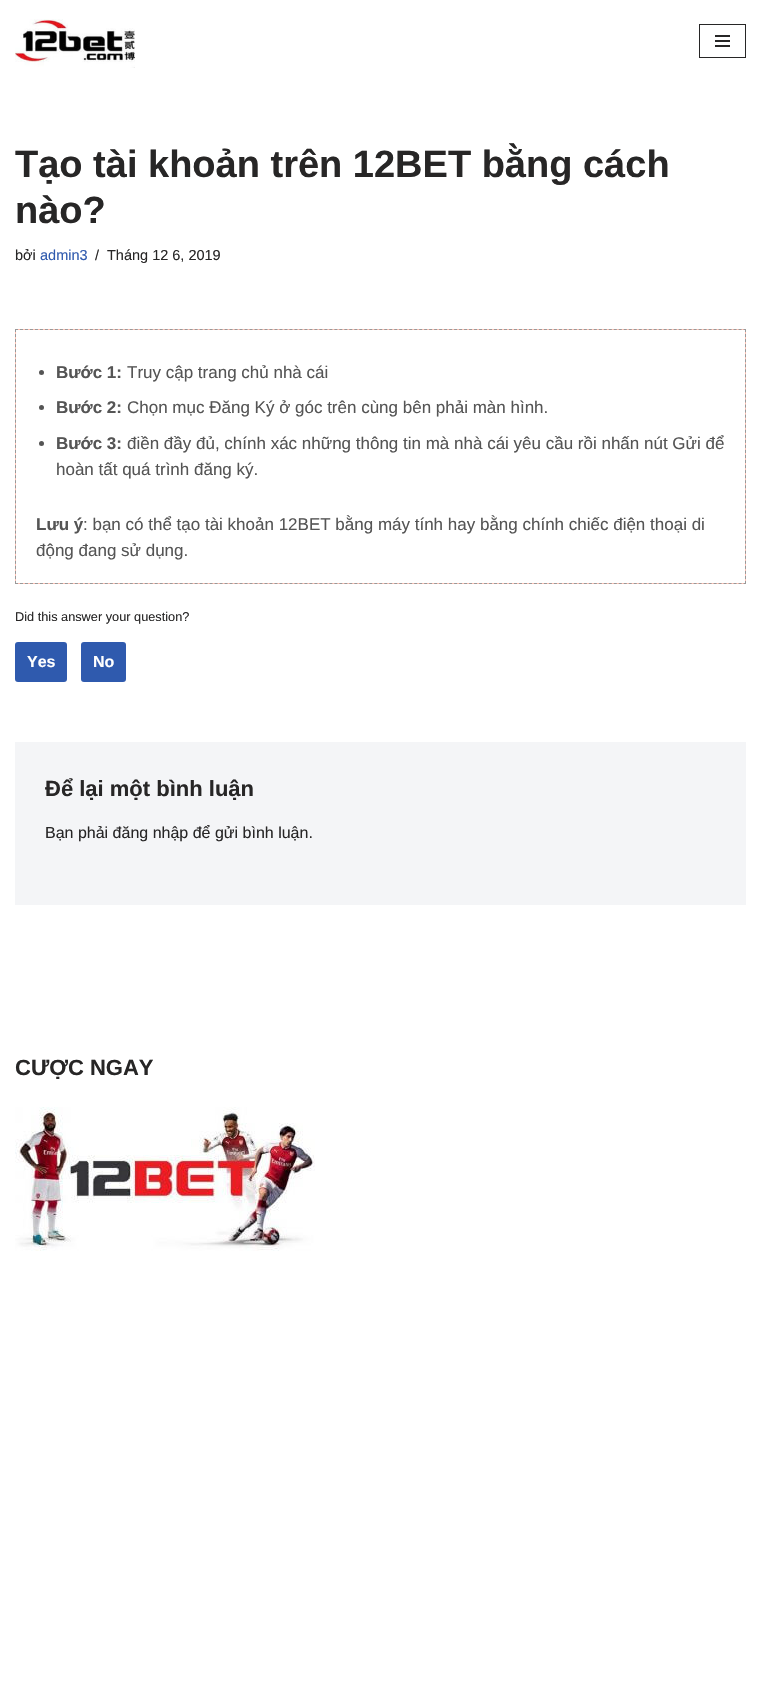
void draw(SkCanvas* canvas) {
    SkPaint paint;
    paint.setAntiAlias(true);
    auto face = [&](const char* family, int weight, float size, bool italic = false) {
        SkFontStyle style(weight, SkFontStyle::kNormal_Width,
            italic ? SkFontStyle::kItalic_Slant : SkFontStyle::kUpright_Slant);
        SkFont result(fontMgr->matchFamilyStyle(family, style), size);
        result.setSubpixel(true);
        return result;
    };
    auto write = [&](const char* s, float x, float y, const SkFont& font, SkColor color) {
        SkPaint ink(SkColor4f::FromColor(color));
        ink.setAntiAlias(true);
        canvas->drawString(s, x, y, font, ink);
    };
    auto block = [&](float x, float y, float w, float h, SkColor color) {
        SkPaint ink(SkColor4f::FromColor(color));
        ink.setAntiAlias(true);
        canvas->drawRect(SkRect::MakeXYWH(x, y, w, h), ink);
    };
    auto card = [&](float x, float y, float w, float h, float radius, SkColor color) {
        SkPaint ink(SkColor4f::FromColor(color));
        ink.setAntiAlias(true);
        canvas->drawRoundRect(SkRect::MakeXYWH(x, y, w, h), radius, radius, ink);
    };
    auto paste = [&](const char* path, float x, float y, float w, float h) {
        auto image = SkImages::DeferredFromEncodedData(SkData::MakeFromFileName(path));
        canvas->drawImageRect(image, SkRect::MakeXYWH(x, y, w, h), SkSamplingOptions());
    };
    canvas->clear(SK_ColorWHITE);
    paste("pic1.png", 15, 19, 120, 49);
    paint.setStyle(SkPaint::kStroke_Style);
    paint.setStrokeWidth(1);
    paint.setColor(SkColorSetRGB(39, 38, 38));
    canvas->drawRect(SkRect::MakeXYWH(699.5f, 24.5f, 46, 33), paint);
    block(715, 35, 15, 2, SkColorSetRGB(39, 38, 38));
    block(715, 40, 15, 2, SkColorSetRGB(39, 38, 38));
    block(715, 45, 15, 2, SkColorSetRGB(39, 38, 38));
    auto kFont1 = face("Liberation Sans", 700, 38);
    write("Tạo tài khoản trên 12BET bằng cách", 15, 177, kFont1, SkColorSetRGB(39, 38, 38));
    write("nào?", 15, 223, kFont1, SkColorSetRGB(39, 38, 38));
    auto kFont2 = face("Liberation Sans", 400, 14.5f);
    write("bởi", 15, 260, kFont2, SkColorSetRGB(39, 38, 38));
    write("admin3", 40, 260, kFont2, SkColorSetRGB(47, 90, 174));
    write("/", 95, 260, kFont2, SkColorSetRGB(39, 38, 38));
    write("Tháng 12 6, 2019", 107, 260, kFont2, SkColorSetRGB(39, 38, 38));
    block(15, 329, 731, 255, SkColorSetRGB(255, 193, 180));
    paint.setColor(SkColorSetRGB(153, 153, 153));
    paint.setPathEffect(SkDashPathEffect::Make({{3, 1.99f}}, 0));
    canvas->drawPath(SkPathBuilder().moveTo(15, 329.5f).lineTo(746, 329.5f).detach(), paint);
    paint.setPathEffect(nullptr);
    paint.setPathEffect(SkDashPathEffect::Make({{3, 2.04f}}, 0));
    canvas->drawPath(SkPathBuilder().moveTo(745.5f, 329).lineTo(745.5f, 584).detach(), paint);
    paint.setPathEffect(nullptr);
    paint.setPathEffect(SkDashPathEffect::Make({{3, 1.99f}}, 0));
    canvas->drawPath(SkPathBuilder().moveTo(15, 583.5f).lineTo(746, 583.5f).detach(), paint);
    paint.setPathEffect(nullptr);
    paint.setPathEffect(SkDashPathEffect::Make({{3, 2.04f}}, 0));
    canvas->drawPath(SkPathBuilder().moveTo(15.5f, 329).lineTo(15.5f, 584).detach(), paint);
    paint.setPathEffect(nullptr);
    block(16, 330, 729, 253, SK_ColorWHITE);
    paint.setStyle(SkPaint::kFill_Style);
    paint.setColor(SkColorSetRGB(85, 85, 85));
    canvas->drawCircle(41.5f, 372.5f, 2.5f, paint);
    auto kFont3 = face("Liberation Sans", 700, 17);
    write("Bước 1:", 56, 378, kFont3, SkColorSetRGB(85, 85, 85));
    auto kFont4 = face("Liberation Sans", 400, 17);
    write("Truy cập trang chủ nhà cái", 127, 378, kFont4, SkColorSetRGB(85, 85, 85));
    canvas->drawCircle(41.5f, 407.5f, 2.5f, paint);
    write("Bước 2:", 56, 413, kFont3, SkColorSetRGB(85, 85, 85));
    write("Chọn mục Đăng Ký ở góc trên cùng bên phải màn hình.", 127, 413, kFont4, SkColorSetRGB(85, 85, 85));
    canvas->drawCircle(41.5f, 443.5f, 2.5f, paint);
    write("Bước 3:", 56, 449, kFont3, SkColorSetRGB(85, 85, 85));
    write("điền đầy đủ, chính xác những thông tin mà nhà cái yêu cầu rồi nhấn nút Gửi để", 127, 449, kFont4, SkColorSetRGB(85, 85, 85));
    write("hoàn tất quá trình đăng ký.", 56, 475, kFont4, SkColorSetRGB(85, 85, 85));
    write("Lưu ý", 36, 530, kFont3, SkColorSetRGB(85, 85, 85));
    write(": bạn có thể tạo tài khoản 12BET bằng máy tính hay bằng chính chiếc điện thoại di", 83, 530, kFont4, SkColorSetRGB(85, 85, 85));
    write("động đang sử dụng.", 36, 556, kFont4, SkColorSetRGB(85, 85, 85));
    auto kFont5 = face("Liberation Sans", 400, 12.75f);
    write("Did this answer your question?", 15, 621, kFont5, SkColorSetRGB(39, 38, 38));
    card(15, 642, 52, 40, 3, SkColorSetRGB(47, 90, 174));
    auto kFont6 = face("Liberation Sans", 700, 16);
    write("Yes", 27, 667, kFont6, SK_ColorWHITE);
    card(81, 642, 45, 40, 3, SkColorSetRGB(47, 90, 174));
    write("No", 93, 667, kFont6, SK_ColorWHITE);
    block(15, 742, 731, 163, SkColorSetRGB(244, 245, 247));
    auto kFont7 = face("Liberation Sans", 700, 22);
    write("Để lại một bình luận", 45, 796, kFont7, SkColorSetRGB(39, 38, 38));
    auto kFont8 = face("Liberation Sans", 400, 16);
    write("Bạn phải đăng nhập để gửi bình luận.", 45, 838, kFont8, SkColorSetRGB(39, 38, 38));
    write("CƯỢC NGAY", 15, 1075, kFont7, SkColorSetRGB(39, 38, 38));
    paste("pic2.png", 15, 1107, 300, 144);
}
